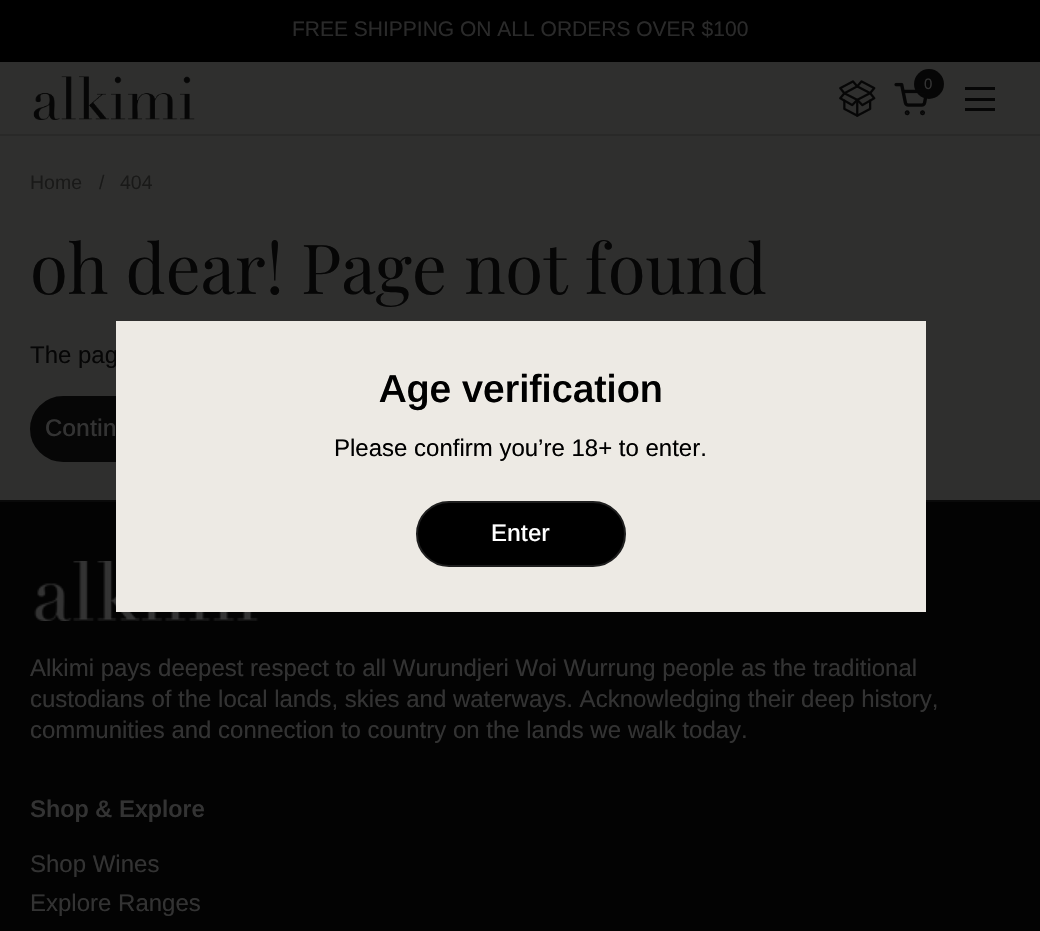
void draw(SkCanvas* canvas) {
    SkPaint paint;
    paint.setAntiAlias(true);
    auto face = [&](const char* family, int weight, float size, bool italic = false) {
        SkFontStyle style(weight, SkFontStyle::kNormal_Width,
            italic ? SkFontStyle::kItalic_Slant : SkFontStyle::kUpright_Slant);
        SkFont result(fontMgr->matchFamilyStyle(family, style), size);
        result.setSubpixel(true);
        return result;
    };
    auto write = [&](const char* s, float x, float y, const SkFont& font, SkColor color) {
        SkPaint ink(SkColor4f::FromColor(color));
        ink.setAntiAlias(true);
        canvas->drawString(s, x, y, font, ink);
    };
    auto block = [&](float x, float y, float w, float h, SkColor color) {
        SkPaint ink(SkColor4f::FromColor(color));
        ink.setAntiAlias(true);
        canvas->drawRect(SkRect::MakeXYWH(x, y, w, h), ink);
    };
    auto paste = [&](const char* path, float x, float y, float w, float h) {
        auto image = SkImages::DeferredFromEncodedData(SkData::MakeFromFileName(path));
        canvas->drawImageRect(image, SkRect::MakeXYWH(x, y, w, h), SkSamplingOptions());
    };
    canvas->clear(SkColorSetRGB(47, 47, 46));
    block(0, 0, 1040, 62, SK_ColorBLACK);
    auto kFont1 = face("Arimo", 400, 21);
    write("FREE SHIPPING ON ALL ORDERS OVER $100", 292, 36, kFont1, SkColorSetRGB(42, 42, 42));
    paste("pic1.png", 33, 76, 162, 44);
    paste("pic2.png", 839, 80, 37, 37);
    paint.setColor(SkColorSetRGB(6, 6, 6));
    canvas->drawCircle(929, 84, 15, paint);
    auto kFont2 = face("Arimo", 400, 15);
    write("0", 924, 89, kFont2, SkColorSetRGB(51, 51, 51));
    paste("pic3.png", 894, 82, 33, 34);
    block(965, 87, 30, 3, SkColorSetRGB(6, 6, 6));
    block(965, 98, 30, 3, SkColorSetRGB(6, 6, 6));
    block(965, 108, 30, 3, SkColorSetRGB(6, 6, 6));
    block(0, 134, 1040, 2, SkColorSetRGB(41, 41, 40));
    auto kFont3 = face("Arimo", 400, 19.5f);
    write("Home", 30, 189, kFont3, SkColorSetRGB(25, 25, 24));
    write("/", 99, 189, kFont3, SkColorSetRGB(25, 25, 24));
    write("404", 120, 189, kFont3, SkColorSetRGB(25, 25, 24));
    auto kFont4 = face("Playfair Display", 400, 69);
    write("oh dear! Page not found", 30, 294, kFont4, SkColorSetRGB(6, 6, 6));
    auto kFont5 = face("Arimo", 400, 24);
    write("The pag", 30, 363, kFont5, SkColorSetRGB(6, 6, 6));
    canvas->drawRoundRect(SkRect::MakeXYWH(31, 397, 234, 64), 32, 32, paint);
    paint.setStyle(SkPaint::kStroke_Style);
    paint.setStrokeWidth(2);
    canvas->drawRoundRect(SkRect::MakeXYWH(31, 397, 234, 64), 32, 32, paint);
    auto kFont6 = face("Arimo", 500, 24);
    write("Contin", 45, 436, kFont6, SkColorSetRGB(51, 51, 51));
    block(0, 502, 1040, 429, SkColorSetRGB(3, 3, 3));
    block(0, 500, 1040, 2, SkColorSetRGB(10, 10, 10));
    paste("pic4.png", 34, 561, 225, 60);
    block(116, 321, 810, 291, SkColorSetRGB(237, 234, 228));
    auto kFont7 = face("Arimo", 600, 39);
    write("Age verification", 379, 402, kFont7, SK_ColorBLACK);
    write("Please confirm you’re 18+ to enter.", 334, 456, kFont5, SK_ColorBLACK);
    paint.setStyle(SkPaint::kFill_Style);
    paint.setColor(SK_ColorBLACK);
    canvas->drawRoundRect(SkRect::MakeXYWH(417, 502, 208, 64), 32, 32, paint);
    paint.setStyle(SkPaint::kStroke_Style);
    paint.setColor(SkColorSetRGB(30, 30, 30));
    canvas->drawRoundRect(SkRect::MakeXYWH(417, 502, 208, 64), 32, 32, paint);
    write("Enter", 491, 541, kFont6, SK_ColorWHITE);
    write("Alkimi pays deepest respect to all Wurundjeri Woi Wurrung people as the traditional", 30, 676, kFont5, SkColorSetRGB(51, 51, 51));
    write("custodians of the local lands, skies and waterways. Acknowledging their deep history,", 30, 707, kFont5, SkColorSetRGB(51, 51, 51));
    write("communities and connection to country on the lands we walk today.", 30, 738, kFont5, SkColorSetRGB(51, 51, 51));
    auto kFont8 = face("Arimo", 600, 24);
    write("Shop & Explore", 30, 817, kFont8, SkColorSetRGB(51, 51, 51));
    write("Shop Wines", 30, 872, kFont5, SkColorSetRGB(51, 51, 51));
    write("Explore Ranges", 30, 911, kFont5, SkColorSetRGB(51, 51, 51));
}
